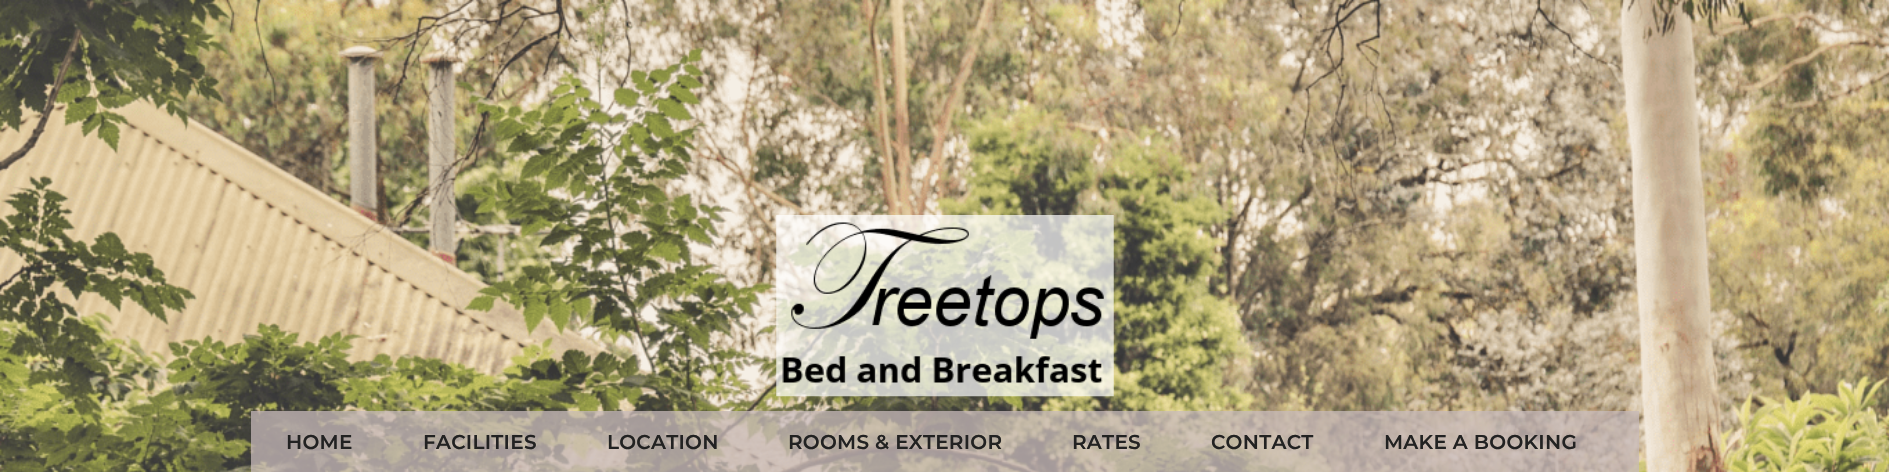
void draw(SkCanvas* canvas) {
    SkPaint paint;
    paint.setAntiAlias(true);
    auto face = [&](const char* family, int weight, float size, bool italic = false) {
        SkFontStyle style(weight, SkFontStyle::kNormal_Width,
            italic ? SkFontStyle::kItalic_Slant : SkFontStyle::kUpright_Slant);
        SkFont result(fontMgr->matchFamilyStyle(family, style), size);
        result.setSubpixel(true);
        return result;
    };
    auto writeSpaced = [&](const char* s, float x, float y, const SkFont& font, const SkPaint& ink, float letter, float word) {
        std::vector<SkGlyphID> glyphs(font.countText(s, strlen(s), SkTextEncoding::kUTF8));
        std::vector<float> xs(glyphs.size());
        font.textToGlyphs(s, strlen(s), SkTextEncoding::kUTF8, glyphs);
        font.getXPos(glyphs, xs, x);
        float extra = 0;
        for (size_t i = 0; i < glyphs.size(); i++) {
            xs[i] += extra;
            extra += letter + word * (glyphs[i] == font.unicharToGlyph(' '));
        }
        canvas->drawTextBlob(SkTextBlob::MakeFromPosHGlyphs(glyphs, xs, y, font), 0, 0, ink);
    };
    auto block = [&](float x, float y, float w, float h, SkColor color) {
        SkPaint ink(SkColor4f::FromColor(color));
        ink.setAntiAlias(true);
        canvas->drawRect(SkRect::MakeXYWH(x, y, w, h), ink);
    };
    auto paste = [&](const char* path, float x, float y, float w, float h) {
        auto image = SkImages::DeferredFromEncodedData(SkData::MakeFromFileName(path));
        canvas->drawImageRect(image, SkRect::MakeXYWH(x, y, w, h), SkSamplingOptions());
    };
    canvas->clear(SK_ColorWHITE);
    paste("pic1.png", 0, 0, 1889, 472);
    paste("pic2.png", 776, 215, 338, 182);
    block(251, 411, 1388, 61, SkColorSetARGB(191, 199, 185, 185));
    auto kFont1 = face("Montserrat", 600, 20);
    paint.setColor(SkColorSetRGB(34, 34, 34));
    writeSpaced("HOME", 286, 449, kFont1, paint, 0.25f, 0);
    writeSpaced("FACILITIES", 423, 449, kFont1, paint, 0.25f, 0);
    writeSpaced("LOCATION", 607, 449, kFont1, paint, 0.25f, 0);
    writeSpaced("ROOMS & EXTERIOR", 788, 449, kFont1, paint, 0.25f, 0);
    writeSpaced("RATES", 1072, 449, kFont1, paint, 0.25f, 0);
    writeSpaced("CONTACT", 1211, 449, kFont1, paint, 0.25f, 0);
    writeSpaced("MAKE A BOOKING", 1384, 449, kFont1, paint, 0.25f, 0);
}
